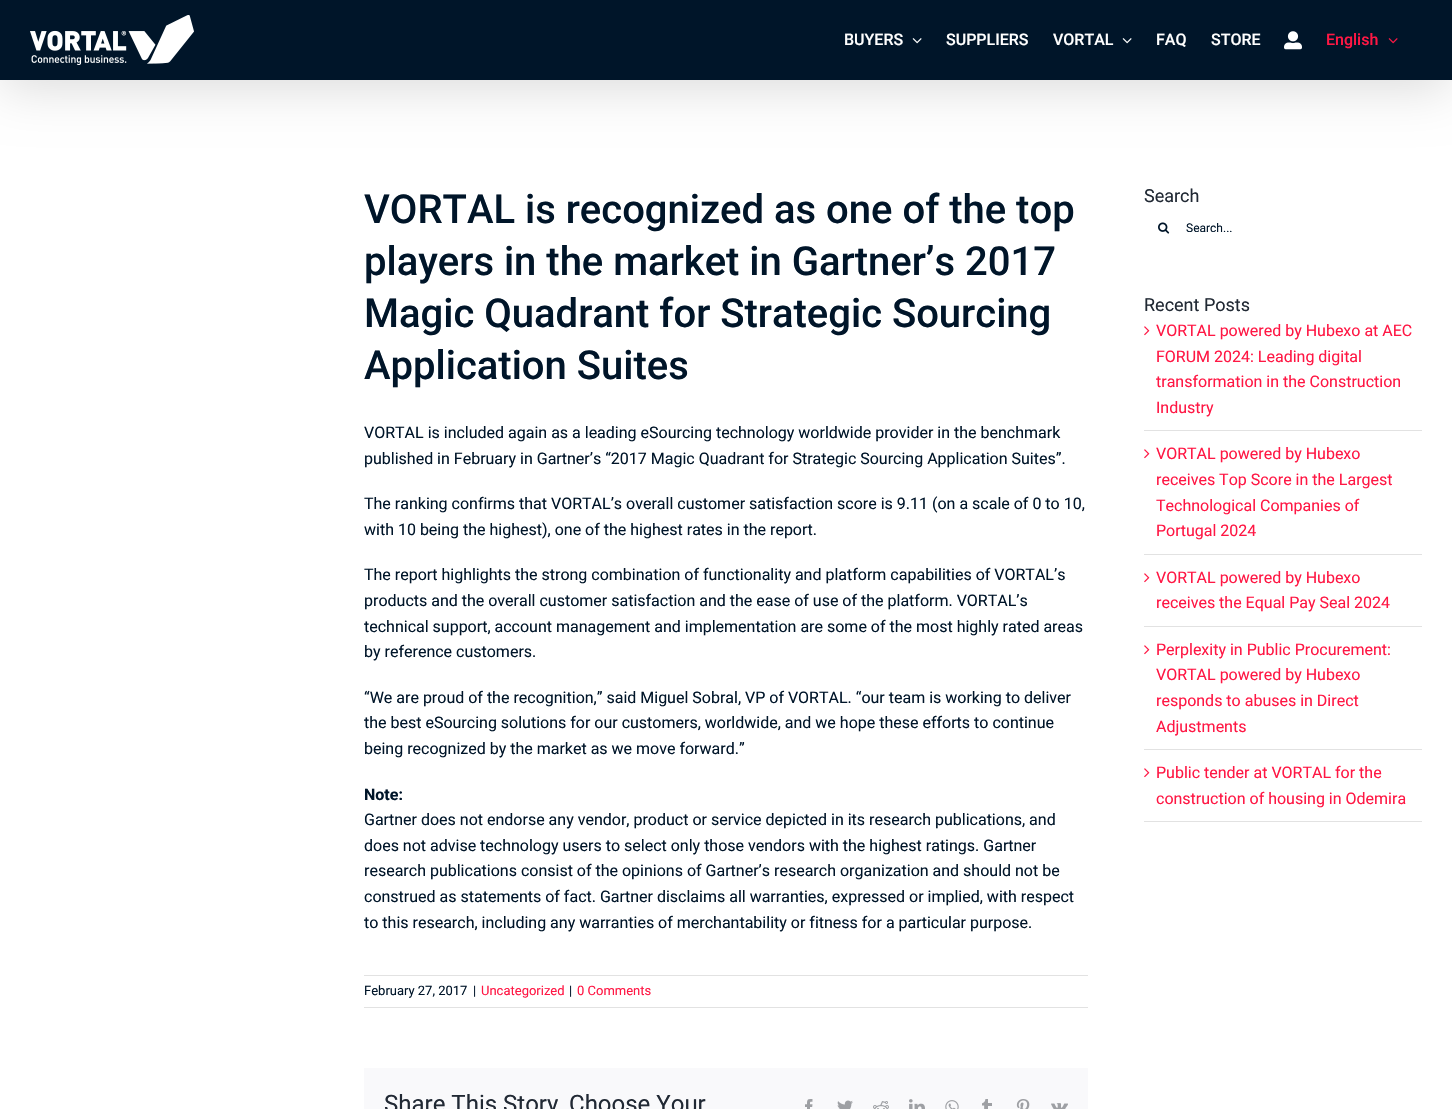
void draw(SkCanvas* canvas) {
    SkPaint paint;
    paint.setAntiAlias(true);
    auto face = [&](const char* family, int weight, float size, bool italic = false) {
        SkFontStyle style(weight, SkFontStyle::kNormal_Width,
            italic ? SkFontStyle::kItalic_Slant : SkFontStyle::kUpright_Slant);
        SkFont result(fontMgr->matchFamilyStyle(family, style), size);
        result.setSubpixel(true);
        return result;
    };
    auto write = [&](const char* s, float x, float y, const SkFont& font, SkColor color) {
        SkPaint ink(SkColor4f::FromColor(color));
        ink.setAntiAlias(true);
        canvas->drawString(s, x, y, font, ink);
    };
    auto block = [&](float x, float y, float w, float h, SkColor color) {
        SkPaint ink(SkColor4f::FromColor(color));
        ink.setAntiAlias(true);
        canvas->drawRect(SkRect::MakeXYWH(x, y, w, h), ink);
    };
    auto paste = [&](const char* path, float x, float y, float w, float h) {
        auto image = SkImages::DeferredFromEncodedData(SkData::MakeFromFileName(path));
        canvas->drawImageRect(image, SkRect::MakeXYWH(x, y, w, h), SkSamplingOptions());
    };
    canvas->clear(SK_ColorWHITE);
    paint.setColor(SkColorSetARGB(36, 0, 0, 0));
    paint.setMaskFilter(SkMaskFilter::MakeBlur(kNormal_SkBlurStyle, 25));
    canvas->drawRect(SkRect::MakeXYWH(2, 12, 1448, 76), paint);
    paint.setMaskFilter(nullptr);
    block(0, 0, 1452, 80, SkColorSetRGB(0, 21, 41));
    paste("pic1.png", 30, 15, 164, 50);
    auto kFont1 = face("Roboto", 500, 16);
    write("BUYERS", 844, 45, kFont1, SK_ColorWHITE);
    paste("pic2.png", 912, 38, 10, 6);
    write("SUPPLIERS", 946, 45, kFont1, SK_ColorWHITE);
    write("VORTAL", 1053, 45, kFont1, SK_ColorWHITE);
    paste("pic2.png", 1122, 38, 10, 6);
    write("FAQ", 1156, 45, kFont1, SK_ColorWHITE);
    write("STORE", 1211, 45, kFont1, SK_ColorWHITE);
    paste("pic3.png", 1284, 31, 18, 19);
    write("English", 1326, 45, kFont1, SkColorSetRGB(255, 23, 68));
    paste("pic4.png", 1388, 38, 10, 6);
    auto kFont2 = face("Roboto", 500, 40);
    write("VORTAL is recognized as one of the top", 364, 223, kFont2, SkColorSetRGB(0, 21, 41));
    write("players in the market in Gartner’s 2017", 364, 275, kFont2, SkColorSetRGB(0, 21, 41));
    write("Magic Quadrant for Strategic Sourcing", 364, 327, kFont2, SkColorSetRGB(0, 21, 41));
    write("Application Suites", 364, 379, kFont2, SkColorSetRGB(0, 21, 41));
    auto kFont3 = face("Roboto", 400, 16);
    write("VORTAL is included again as a leading eSourcing technology worldwide provider in the benchmark", 364, 438, kFont3, SkColorSetRGB(0, 21, 41));
    write("published in February in Gartner’s “2017 Magic Quadrant for Strategic Sourcing Application Suites”.", 364, 464, kFont3, SkColorSetRGB(0, 21, 41));
    write("The ranking confirms that VORTAL’s overall customer satisfaction score is 9.11 (on a scale of 0 to 10,", 364, 509, kFont3, SkColorSetRGB(0, 21, 41));
    write("with 10 being the highest), one of the highest rates in the report.", 364, 535, kFont3, SkColorSetRGB(0, 21, 41));
    write("The report highlights the strong combination of functionality and platform capabilities of VORTAL’s", 364, 580, kFont3, SkColorSetRGB(0, 21, 41));
    write("products and the overall customer satisfaction and the ease of use of the platform. VORTAL’s", 364, 606, kFont3, SkColorSetRGB(0, 21, 41));
    write("technical support, account management and implementation are some of the most highly rated areas", 364, 632, kFont3, SkColorSetRGB(0, 21, 41));
    write("by reference customers.", 364, 657, kFont3, SkColorSetRGB(0, 21, 41));
    write("“We are proud of the recognition,” said Miguel Sobral, VP of VORTAL. “our team is working to deliver", 364, 703, kFont3, SkColorSetRGB(0, 21, 41));
    write("the best eSourcing solutions for our customers, worldwide, and we hope these efforts to continue", 364, 728, kFont3, SkColorSetRGB(0, 21, 41));
    write("being recognized by the market as we move forward.”", 364, 754, kFont3, SkColorSetRGB(0, 21, 41));
    auto kFont4 = face("Roboto", 700, 16);
    write("Note:", 364, 800, kFont4, SkColorSetRGB(0, 21, 41));
    write("Gartner does not endorse any vendor, product or service depicted in its research publications, and", 364, 825, kFont3, SkColorSetRGB(0, 21, 41));
    write("does not advise technology users to select only those vendors with the highest ratings. Gartner", 364, 851, kFont3, SkColorSetRGB(0, 21, 41));
    write("research publications consist of the opinions of Gartner’s research organization and should not be", 364, 876, kFont3, SkColorSetRGB(0, 21, 41));
    write("construed as statements of fact. Gartner disclaims all warranties, expressed or implied, with respect", 364, 902, kFont3, SkColorSetRGB(0, 21, 41));
    write("to this research, including any warranties of merchantability or fitness for a particular purpose.", 364, 928, kFont3, SkColorSetRGB(0, 21, 41));
    block(364, 975, 724, 1, SkColorSetRGB(226, 226, 226));
    block(364, 1007, 724, 1, SkColorSetRGB(226, 226, 226));
    auto kFont5 = face("Roboto", 400, 13);
    write("February 27, 2017", 364, 995, kFont5, SkColorSetRGB(0, 21, 41));
    write("|", 473, 995, kFont5, SkColorSetRGB(0, 21, 41));
    write("Uncategorized", 481, 995, kFont5, SkColorSetRGB(255, 23, 68));
    write("|", 569, 995, kFont5, SkColorSetRGB(0, 21, 41));
    write("0 Comments", 577, 995, kFont5, SkColorSetRGB(255, 23, 68));
    block(364, 1068, 724, 41, SkColorSetRGB(249, 249, 251));
    auto kFont6 = face("Roboto", 400, 24);
    write("Share This Story, Choose Your", 384, 1112, kFont6, SkColorSetRGB(33, 41, 52));
    paste("pic5.png", 805, 1099, 8, 10);
    paste("pic6.png", 837, 1100, 16, 9);
    paste("pic7.png", 873, 1101, 16, 8);
    paste("pic8.png", 909, 1099, 16, 10);
    paste("pic9.png", 945, 1100, 14, 9);
    paste("pic10.png", 982, 1099, 10, 10);
    paste("pic11.png", 1016, 1099, 14, 10);
    paste("pic12.png", 1051, 1103, 17, 6);
    auto kFont7 = face("Roboto", 400, 18);
    write("Search", 1144, 202, kFont7, SkColorSetRGB(33, 41, 52));
    paste("pic13.png", 1158, 222, 12, 12);
    auto kFont8 = face("Roboto", 400, 12);
    write("Search...", 1186, 232, kFont8, SkColorSetRGB(0, 21, 41));
    write("Recent Posts", 1144, 311, kFont7, SkColorSetRGB(33, 41, 52));
    block(1144, 430, 278, 1, SkColorSetRGB(226, 226, 226));
    paste("pic14.png", 1144, 326, 6, 10);
    write("VORTAL powered by Hubexo at AEC", 1156, 336, kFont3, SkColorSetRGB(255, 23, 68));
    write("FORUM 2024: Leading digital", 1156, 362, kFont3, SkColorSetRGB(255, 23, 68));
    write("transformation in the Construction", 1156, 387, kFont3, SkColorSetRGB(255, 23, 68));
    write("Industry", 1156, 413, kFont3, SkColorSetRGB(255, 23, 68));
    block(1144, 554, 278, 1, SkColorSetRGB(226, 226, 226));
    paste("pic14.png", 1144, 449, 6, 10);
    write("VORTAL powered by Hubexo", 1156, 459, kFont3, SkColorSetRGB(255, 23, 68));
    write("receives Top Score in the Largest", 1156, 485, kFont3, SkColorSetRGB(255, 23, 68));
    write("Technological Companies of", 1156, 511, kFont3, SkColorSetRGB(255, 23, 68));
    write("Portugal 2024", 1156, 536, kFont3, SkColorSetRGB(255, 23, 68));
    block(1144, 626, 278, 1, SkColorSetRGB(226, 226, 226));
    paste("pic14.png", 1144, 573, 6, 10);
    write("VORTAL powered by Hubexo", 1156, 583, kFont3, SkColorSetRGB(255, 23, 68));
    write("receives the Equal Pay Seal 2024", 1156, 608, kFont3, SkColorSetRGB(255, 23, 68));
    block(1144, 749, 278, 1, SkColorSetRGB(226, 226, 226));
    paste("pic14.png", 1144, 645, 6, 10);
    write("Perplexity in Public Procurement:", 1156, 655, kFont3, SkColorSetRGB(255, 23, 68));
    write("VORTAL powered by Hubexo", 1156, 680, kFont3, SkColorSetRGB(255, 23, 68));
    write("responds to abuses in Direct", 1156, 706, kFont3, SkColorSetRGB(255, 23, 68));
    write("Adjustments", 1156, 732, kFont3, SkColorSetRGB(255, 23, 68));
    block(1144, 821, 278, 1, SkColorSetRGB(226, 226, 226));
    paste("pic14.png", 1144, 768, 6, 10);
    write("Public tender at VORTAL for the", 1156, 778, kFont3, SkColorSetRGB(255, 23, 68));
    write("construction of housing in Odemira", 1156, 804, kFont3, SkColorSetRGB(255, 23, 68));
}
